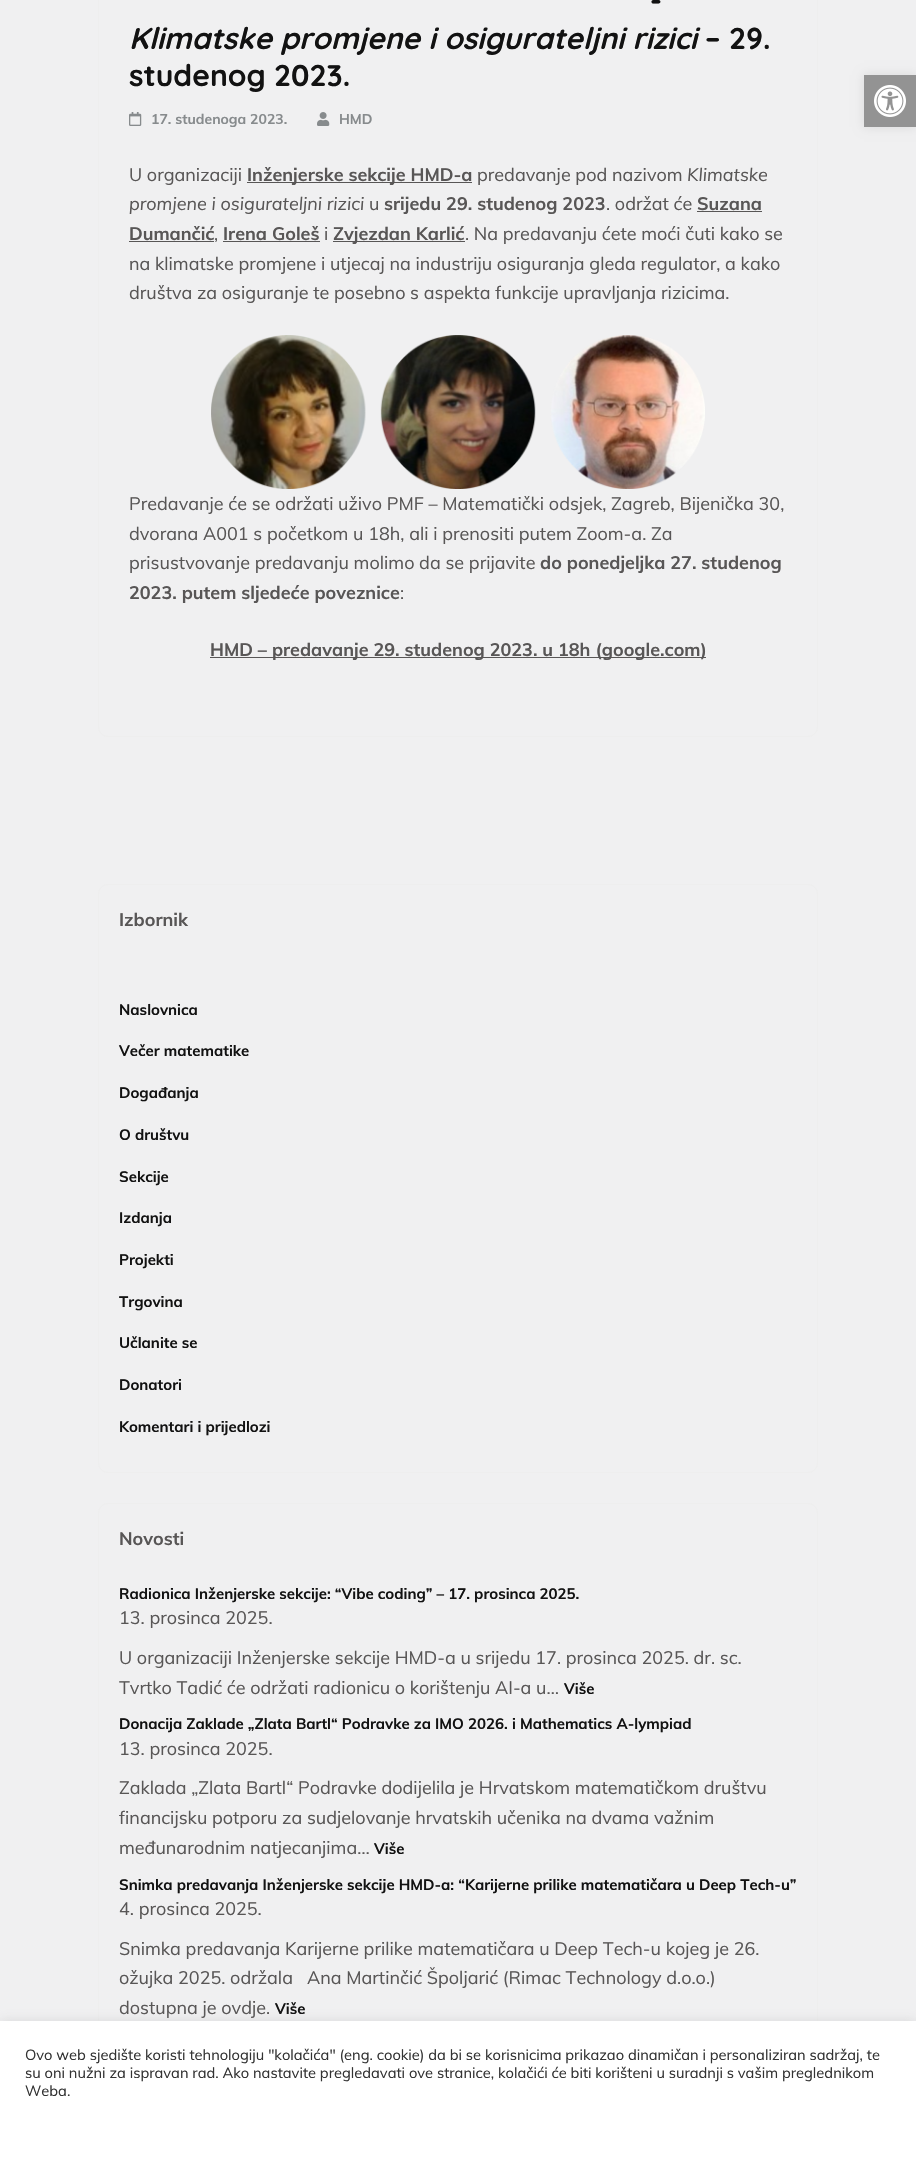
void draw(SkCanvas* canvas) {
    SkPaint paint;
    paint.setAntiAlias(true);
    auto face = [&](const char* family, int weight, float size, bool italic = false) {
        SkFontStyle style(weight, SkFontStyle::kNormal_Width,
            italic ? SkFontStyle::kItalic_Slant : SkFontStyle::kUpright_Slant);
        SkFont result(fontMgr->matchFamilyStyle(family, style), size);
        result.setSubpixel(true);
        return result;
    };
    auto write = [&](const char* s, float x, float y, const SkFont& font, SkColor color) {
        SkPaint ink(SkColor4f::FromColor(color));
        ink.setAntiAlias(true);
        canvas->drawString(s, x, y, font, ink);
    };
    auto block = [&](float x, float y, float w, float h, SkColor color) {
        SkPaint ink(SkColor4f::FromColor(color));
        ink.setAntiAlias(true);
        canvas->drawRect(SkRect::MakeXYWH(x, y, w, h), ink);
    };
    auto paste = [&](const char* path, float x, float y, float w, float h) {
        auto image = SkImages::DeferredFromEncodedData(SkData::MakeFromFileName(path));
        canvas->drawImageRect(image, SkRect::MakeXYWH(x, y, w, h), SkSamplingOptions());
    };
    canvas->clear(SkColorSetRGB(240, 240, 241));
    paint.setStyle(SkPaint::kStroke_Style);
    paint.setStrokeWidth(1);
    paint.setColor(SkColorSetRGB(238, 238, 238));
    canvas->drawRoundRect(SkRect::MakeXYWH(98.5f, -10.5f, 719, 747), 9.5f, 9.5f, paint);
    auto kFont1 = face("Quicksand", 700, 30);
    write("-", 650, 11, kFont1, SkColorSetRGB(18, 18, 18));
    auto kFont2 = face("Quicksand", 700, 30, true);
    write("Klimatske promjene i osigurateljni rizici", 129, 49, kFont2, SkColorSetRGB(18, 18, 18));
    write("– 29.", 705, 49, kFont1, SkColorSetRGB(18, 18, 18));
    write("studenog 2023.", 129, 86, kFont1, SkColorSetRGB(18, 18, 18));
    paste("pic1.png", 129, 112, 13, 14);
    auto kFont3 = face("Muli", 700, 14);
    write("17. studenoga 2023.", 151, 124, kFont3, SkColorSetRGB(135, 139, 141));
    paste("pic2.png", 317, 112, 13, 14);
    write("HMD", 339, 124, kFont3, SkColorSetRGB(135, 139, 141));
    auto kFont4 = face("Muli", 400, 18);
    write("U organizaciji", 129, 181, kFont4, SkColorSetRGB(88, 86, 86));
    block(247, 182, 225, 1, SkColorSetRGB(88, 86, 86));
    auto kFont5 = face("Muli", 700, 18);
    write("Inženjerske sekcije HMD-a", 247, 181, kFont5, SkColorSetRGB(88, 86, 86));
    write("predavanje pod nazivom", 477, 181, kFont4, SkColorSetRGB(88, 86, 86));
    auto kFont6 = face("Muli", 400, 18, true);
    write("Klimatske", 687, 181, kFont6, SkColorSetRGB(88, 86, 86));
    write("promjene i osigurateljni rizici", 129, 210, kFont6, SkColorSetRGB(88, 86, 86));
    write("u", 369, 210, kFont4, SkColorSetRGB(88, 86, 86));
    write("srijedu 29. studenog 2023", 384, 210, kFont5, SkColorSetRGB(88, 86, 86));
    write(". održat će", 606, 210, kFont4, SkColorSetRGB(88, 86, 86));
    write("Suzana", 697, 210, kFont5, SkColorSetRGB(88, 86, 86));
    block(697, 211, 65, 1, SkColorSetRGB(88, 86, 86));
    write("Dumančić", 129, 240, kFont5, SkColorSetRGB(88, 86, 86));
    block(129, 241, 85, 1, SkColorSetRGB(88, 86, 86));
    write("Irena Goleš", 223, 240, kFont5, SkColorSetRGB(88, 86, 86));
    block(223, 241, 97, 1, SkColorSetRGB(88, 86, 86));
    write("i", 324, 240, kFont4, SkColorSetRGB(88, 86, 86));
    block(333, 241, 132, 1, SkColorSetRGB(88, 86, 86));
    write("Zvjezdan Karlić", 333, 240, kFont5, SkColorSetRGB(88, 86, 86));
    write(". Na predavanju ćete moći čuti kako se", 465, 240, kFont4, SkColorSetRGB(88, 86, 86));
    write(",", 214, 240, kFont4, SkColorSetRGB(88, 86, 86));
    write("na klimatske promjene i utjecaj na industriju osiguranja gleda regulator, a kako", 129, 270, kFont4, SkColorSetRGB(88, 86, 86));
    write("društva za osiguranje te posebno s aspekta funkcije upravljanja rizicima.", 129, 299, kFont4, SkColorSetRGB(88, 86, 86));
    paste("pic3.png", 211, 335, 494, 154);
    write("Predavanje će se održati uživo PMF – Matematički odsjek, Zagreb, Bijenička 30,", 129, 510, kFont4, SkColorSetRGB(88, 86, 86));
    write("dvorana A001 s početkom u 18h, ali i prenositi putem Zoom-a. Za", 129, 540, kFont4, SkColorSetRGB(88, 86, 86));
    write("prisustvovanje predavanju molimo da se prijavite", 129, 569, kFont4, SkColorSetRGB(88, 86, 86));
    write("do ponedjeljka 27. studenog", 540, 569, kFont5, SkColorSetRGB(88, 86, 86));
    write("2023. putem sljedeće poveznice", 129, 599, kFont5, SkColorSetRGB(88, 86, 86));
    write(":", 400, 599, kFont4, SkColorSetRGB(88, 86, 86));
    block(210, 657, 496, 1, SkColorSetRGB(88, 86, 86));
    write("HMD – predavanje 29. studenog 2023. u 18h (google.com)", 210, 656, kFont5, SkColorSetRGB(88, 86, 86));
    canvas->drawRoundRect(SkRect::MakeXYWH(98.5f, 884.5f, 719, 588), 9.5f, 9.5f, paint);
    write("Izbornik", 119, 926, kFont5, SkColorSetRGB(88, 86, 86));
    auto kFont7 = face("Muli", 700, 15);
    write("Naslovnica", 119, 1015, kFont7, SkColorSetRGB(18, 18, 18));
    write("Večer matematike", 119, 1056, kFont7, SkColorSetRGB(18, 18, 18));
    write("Događanja", 119, 1098, kFont7, SkColorSetRGB(18, 18, 18));
    write("O društvu", 119, 1140, kFont7, SkColorSetRGB(18, 18, 18));
    write("Sekcije", 119, 1182, kFont7, SkColorSetRGB(18, 18, 18));
    write("Izdanja", 119, 1223, kFont7, SkColorSetRGB(18, 18, 18));
    write("Projekti", 119, 1265, kFont7, SkColorSetRGB(18, 18, 18));
    write("Trgovina", 119, 1307, kFont7, SkColorSetRGB(18, 18, 18));
    write("Učlanite se", 119, 1348, kFont7, SkColorSetRGB(18, 18, 18));
    write("Donatori", 119, 1390, kFont7, SkColorSetRGB(18, 18, 18));
    write("Komentari i prijedlozi", 119, 1432, kFont7, SkColorSetRGB(18, 18, 18));
    canvas->drawRoundRect(SkRect::MakeXYWH(98.5f, 1503.5f, 719, 552), 9.5f, 9.5f, paint);
    write("Novosti", 119, 1545, kFont5, SkColorSetRGB(88, 86, 86));
    write("Radionica Inženjerske sekcije: “Vibe coding” – 17. prosinca 2025.", 119, 1599, kFont7, SkColorSetRGB(18, 18, 18));
    write("13. prosinca 2025.", 119, 1624, kFont4, SkColorSetRGB(88, 86, 86));
    write("U organizaciji Inženjerske sekcije HMD-a u srijedu 17. prosinca 2025. dr. sc.", 119, 1664, kFont4, SkColorSetRGB(88, 86, 86));
    write("Tvrtko Tadić će održati radionicu o korištenju AI-a u…", 119, 1694, kFont4, SkColorSetRGB(88, 86, 86));
    write("Više", 564, 1694, kFont7, SkColorSetRGB(18, 18, 18));
    write("Donacija Zaklade „Zlata Bartl“ Podravke za IMO 2026. i Mathematics A-lympiad", 119, 1729, kFont7, SkColorSetRGB(18, 18, 18));
    write("13. prosinca 2025.", 119, 1755, kFont4, SkColorSetRGB(88, 86, 86));
    write("Zaklada „Zlata Bartl“ Podravke dodijelila je Hrvatskom matematičkom društvu", 119, 1794, kFont4, SkColorSetRGB(88, 86, 86));
    write("financijsku potporu za sudjelovanje hrvatskih učenika na dvama važnim", 119, 1824, kFont4, SkColorSetRGB(88, 86, 86));
    write("međunarodnim natjecanjima…", 119, 1854, kFont4, SkColorSetRGB(88, 86, 86));
    write("Više", 374, 1854, kFont7, SkColorSetRGB(18, 18, 18));
    write("Snimka predavanja Inženjerske sekcije HMD-a: “Karijerne prilike matematičara u Deep Tech-u”", 119, 1890, kFont7, SkColorSetRGB(18, 18, 18));
    write("4. prosinca 2025.", 119, 1915, kFont4, SkColorSetRGB(88, 86, 86));
    write("Snimka predavanja Karijerne prilike matematičara u Deep Tech-u kojeg je 26.", 119, 1955, kFont4, SkColorSetRGB(88, 86, 86));
    write("ožujka 2025. održala   Ana Martinčić Špoljarić (Rimac Technology d.o.o.)", 119, 1984, kFont4, SkColorSetRGB(88, 86, 86));
    write("dostupna je ovdje.", 119, 2014, kFont4, SkColorSetRGB(88, 86, 86));
    write("Više", 275, 2014, kFont7, SkColorSetRGB(18, 18, 18));
    paint.setStyle(SkPaint::kFill_Style);
    paint.setColor(SkColorSetARGB(26, 0, 0, 0));
    paint.setMaskFilter(SkMaskFilter::MakeBlur(kNormal_SkBlurStyle, 5));
    canvas->drawRect(SkRect::MakeXYWH(864, 75, 52, 52), paint);
    paint.setMaskFilter(nullptr);
    block(864, 75, 52, 52, SkColorSetRGB(147, 147, 147));
    paste("pic4.png", 874, 85, 32, 32);
    paint.setColor(SkColorSetARGB(77, 172, 171, 171));
    paint.setMaskFilter(SkMaskFilter::MakeBlur(kNormal_SkBlurStyle, 5));
    canvas->drawRect(SkRect::MakeXYWH(0, 2020, 916, 155), paint);
    paint.setMaskFilter(nullptr);
    block(0, 2021, 916, 155, SK_ColorWHITE);
    auto kFont8 = face("Muli", 400, 14.67f);
    write("Ovo web sjedište koristi tehnologiju \"kolačića\" (eng. cookie) da bi se korisnicima prikazao dinamičan i personaliziran sadržaj, te", 25, 2060, kFont8, SkColorSetRGB(51, 51, 51));
    write("su oni nužni za ispravan rad. Ako nastavite pregledavati ove stranice, kolačići će biti korišteni u suradnji s vašim preglednikom", 25, 2078, kFont8, SkColorSetRGB(51, 51, 51));
    write("Weba.", 25, 2096, kFont8, SkColorSetRGB(51, 51, 51));
}
